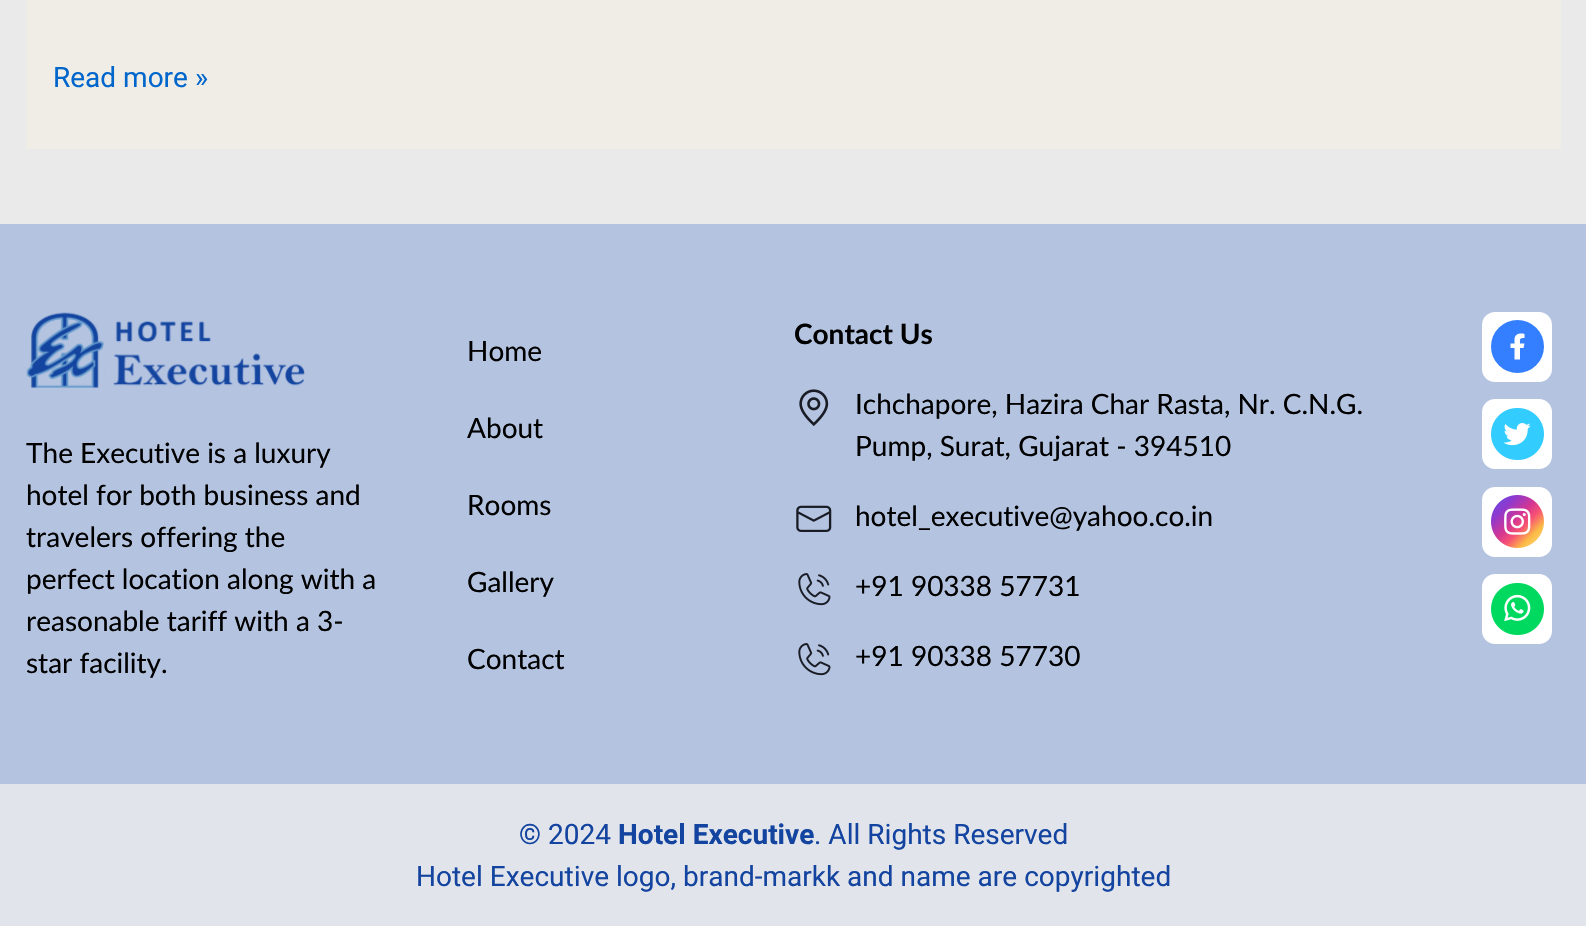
void draw(SkCanvas* canvas) {
    SkPaint paint;
    paint.setAntiAlias(true);
    auto face = [&](const char* family, int weight, float size, bool italic = false) {
        SkFontStyle style(weight, SkFontStyle::kNormal_Width,
            italic ? SkFontStyle::kItalic_Slant : SkFontStyle::kUpright_Slant);
        SkFont result(fontMgr->matchFamilyStyle(family, style), size);
        result.setSubpixel(true);
        return result;
    };
    auto write = [&](const char* s, float x, float y, const SkFont& font, SkColor color) {
        SkPaint ink(SkColor4f::FromColor(color));
        ink.setAntiAlias(true);
        canvas->drawString(s, x, y, font, ink);
    };
    auto block = [&](float x, float y, float w, float h, SkColor color) {
        SkPaint ink(SkColor4f::FromColor(color));
        ink.setAntiAlias(true);
        canvas->drawRect(SkRect::MakeXYWH(x, y, w, h), ink);
    };
    auto card = [&](float x, float y, float w, float h, float radius, SkColor color) {
        SkPaint ink(SkColor4f::FromColor(color));
        ink.setAntiAlias(true);
        canvas->drawRoundRect(SkRect::MakeXYWH(x, y, w, h), radius, radius, ink);
    };
    auto paste = [&](const char* path, float x, float y, float w, float h) {
        auto image = SkImages::DeferredFromEncodedData(SkData::MakeFromFileName(path));
        canvas->drawImageRect(image, SkRect::MakeXYWH(x, y, w, h), SkSamplingOptions());
    };
    canvas->clear(SkColorSetRGB(234, 234, 234));
    block(26, 0, 1535, 149, SkColorSetRGB(240, 237, 230));
    auto kFont1 = face("Heebo", 400, 28);
    write("Read more »", 53, 87, kFont1, SkColorSetRGB(0, 102, 204));
    block(0, 224, 1586, 560, SkColorSetRGB(179, 195, 224));
    paste("pic1.png", 26, 312, 279, 76);
    auto kFont2 = face("Lato", 400, 28);
    write("The Executive is a luxury", 26, 463, kFont2, SK_ColorBLACK);
    write("hotel for both business and", 26, 505, kFont2, SK_ColorBLACK);
    write("travelers offering the", 26, 547, kFont2, SK_ColorBLACK);
    write("perfect location along with a", 26, 589, kFont2, SK_ColorBLACK);
    write("reasonable tariff with a 3-", 26, 631, kFont2, SK_ColorBLACK);
    write("star facility.", 26, 673, kFont2, SK_ColorBLACK);
    write("Home", 467, 361, kFont2, SK_ColorBLACK);
    write("About", 467, 438, kFont2, SK_ColorBLACK);
    write("Rooms", 467, 515, kFont2, SK_ColorBLACK);
    write("Gallery", 467, 592, kFont2, SK_ColorBLACK);
    write("Contact", 467, 669, kFont2, SK_ColorBLACK);
    auto kFont3 = face("Lato", 700, 28);
    write("Contact Us", 794, 344, kFont3, SK_ColorBLACK);
    paste("pic2.png", 799, 389, 30, 37);
    write("Ichchapore, Hazira Char Rasta, Nr. C.N.G.", 855, 414, kFont2, SK_ColorBLACK);
    write("Pump, Surat, Gujarat - 394510", 855, 456, kFont2, SK_ColorBLACK);
    paste("pic3.png", 796, 505, 36, 27);
    write("hotel_executive@yahoo.co.in", 855, 526, kFont2, SK_ColorBLACK);
    paste("pic4.png", 798, 573, 33, 33);
    write("+91 90338 57731", 855, 596, kFont2, SK_ColorBLACK);
    paste("pic4.png", 798, 643, 33, 33);
    write("+91 90338 57730", 855, 666, kFont2, SK_ColorBLACK);
    card(1482, 312, 70, 70, 13, SK_ColorWHITE);
    paint.setColor(SkColorSetRGB(51, 127, 255));
    canvas->drawCircle(1517.5f, 346.5f, 26.5f, paint);
    paint.setColor(SK_ColorWHITE);
    canvas->drawPath(SkPathBuilder().moveTo(1523.5f, 348).lineTo(1524.5f, 343.5f).lineTo(1520, 343.5f).cubicTo(1520, 338.5f, 1519.5f, 338, 1524.5f, 338).lineTo(1524.5f, 334).cubicTo(1520.5f, 333, 1515.5f, 333.5f, 1514.5f, 338.5f).lineTo(1514.5f, 343.5f).lineTo(1510.5f, 343.5f).lineTo(1510.5f, 348).lineTo(1514.5f, 348).lineTo(1514.5f, 359.5f).lineTo(1520, 359.5f).lineTo(1520, 348).close().detach(), paint);
    paste("pic5.png", 1482, 399, 70, 70);
    paste("pic6.png", 1482, 487, 70, 70);
    paste("pic7.png", 1482, 574, 70, 70);
    block(0, 784, 1586, 142, SkColorSetRGB(226, 228, 235));
    write("© 2024", 519, 844, kFont1, SkColorSetRGB(19, 68, 159));
    auto kFont4 = face("Heebo", 700, 28);
    write("Hotel Executive", 618, 844, kFont4, SkColorSetRGB(19, 68, 159));
    write(". All Rights Reserved", 814, 844, kFont1, SkColorSetRGB(19, 68, 159));
    write("Hotel Executive logo, brand-markk and name are copyrighted", 416, 886, kFont1, SkColorSetRGB(19, 68, 159));
}
